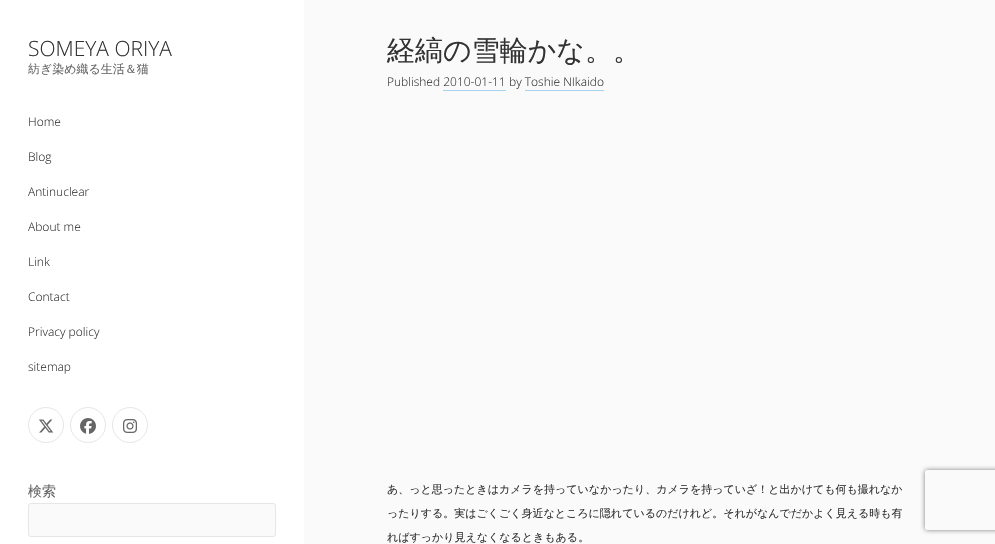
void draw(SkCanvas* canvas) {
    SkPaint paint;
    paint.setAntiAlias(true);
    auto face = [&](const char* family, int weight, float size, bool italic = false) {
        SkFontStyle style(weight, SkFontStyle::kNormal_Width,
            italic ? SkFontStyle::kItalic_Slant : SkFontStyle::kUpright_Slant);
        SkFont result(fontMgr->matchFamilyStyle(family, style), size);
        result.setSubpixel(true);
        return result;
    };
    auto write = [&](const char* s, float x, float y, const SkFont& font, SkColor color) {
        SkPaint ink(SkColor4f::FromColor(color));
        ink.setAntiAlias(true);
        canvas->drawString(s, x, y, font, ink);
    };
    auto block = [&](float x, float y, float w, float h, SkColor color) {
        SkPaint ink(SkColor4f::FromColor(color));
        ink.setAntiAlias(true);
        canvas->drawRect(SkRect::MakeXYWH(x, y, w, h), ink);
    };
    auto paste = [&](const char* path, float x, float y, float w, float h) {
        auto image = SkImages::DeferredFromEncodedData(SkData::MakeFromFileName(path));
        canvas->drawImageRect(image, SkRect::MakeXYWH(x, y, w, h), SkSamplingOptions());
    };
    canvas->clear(SkColorSetRGB(250, 250, 250));
    block(0, 0, 304, 544, SK_ColorWHITE);
    auto kFont1 = face("Open Sans", 300, 21);
    write("SOMEYA ORIYA", 28, 56, kFont1, SkColorSetRGB(51, 51, 51));
    auto kFont2 = face("WenQuanYi Zen Hei", 500, 12);
    write("紡ぎ染め織る生活＆猫", 28, 73, kFont2, SkColorSetRGB(102, 102, 102));
    auto kFont3 = face("Open Sans", 300, 12);
    write("Home", 28, 126, kFont3, SkColorSetRGB(51, 51, 51));
    write("Blog", 28, 161, kFont3, SkColorSetRGB(51, 51, 51));
    write("Antinuclear", 28, 196, kFont3, SkColorSetRGB(51, 51, 51));
    write("About me", 28, 231, kFont3, SkColorSetRGB(51, 51, 51));
    write("Link", 28, 266, kFont3, SkColorSetRGB(51, 51, 51));
    write("Contact", 28, 301, kFont3, SkColorSetRGB(51, 51, 51));
    write("Privacy policy", 28, 336, kFont3, SkColorSetRGB(51, 51, 51));
    write("sitemap", 28, 371, kFont3, SkColorSetRGB(51, 51, 51));
    paint.setStyle(SkPaint::kStroke_Style);
    paint.setStrokeWidth(1);
    paint.setColor(SkColorSetRGB(230, 230, 230));
    canvas->drawCircle(46, 425, 17.5f, paint);
    paste("pic1.png", 39, 419, 15, 14);
    canvas->drawCircle(88, 425, 17.5f, paint);
    paste("pic2.png", 80, 418, 16, 16);
    canvas->drawCircle(130, 425, 17.5f, paint);
    paste("pic3.png", 123, 419, 14, 14);
    auto kFont4 = face("WenQuanYi Zen Hei", 500, 14);
    write("検索", 28, 496, kFont4, SkColorSetRGB(102, 102, 102));
    paint.setStyle(SkPaint::kFill_Style);
    paint.setColor(SkColorSetRGB(250, 250, 250));
    canvas->drawRoundRect(SkRect::MakeXYWH(28.5f, 503.5f, 247, 33), 2.5f, 2.5f, paint);
    paint.setStyle(SkPaint::kStroke_Style);
    paint.setColor(SkColorSetRGB(230, 230, 230));
    canvas->drawRoundRect(SkRect::MakeXYWH(28.5f, 503.5f, 247, 33), 2.5f, 2.5f, paint);
    auto kFont5 = face("WenQuanYi Zen Hei", 500, 28);
    write("経縞の雪輪かな。。", 387, 60, kFont5, SkColorSetRGB(51, 51, 51));
    write("Published 2010-01-11", 387, 86, kFont3, SkColorSetRGB(51, 51, 51));
    block(443, 90, 63, 1, SkColorSetRGB(165, 211, 237));
    write("by Toshie NIkaido", 509, 86, kFont3, SkColorSetRGB(51, 51, 51));
    block(525, 90, 79, 1, SkColorSetRGB(165, 211, 237));
    auto kFont6 = face("WenQuanYi Zen Hei", 500, 11);
    write("あ、っと思ったときはカメラを持っていなかったり、カメラを持っていざ！と出かけても何も撮れなか", 387, 493, kFont6, SkColorSetRGB(51, 51, 51));
    write("ったりする。実はごくごく身近なところに隠れているのだけれど。それがなんでだかよく見える時も有", 387, 517, kFont6, SkColorSetRGB(51, 51, 51));
    write("ればすっかり見えなくなるときもある。", 387, 541, kFont6, SkColorSetRGB(51, 51, 51));
    canvas->save();
    canvas->clipPath(SkPathBuilder(SkPathFillType::kEvenOdd).moveTo(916, 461).lineTo(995, 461).lineTo(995, 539).lineTo(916, 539).close().moveTo(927, 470).lineTo(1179, 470).cubicTo(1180, 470, 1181, 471, 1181, 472).lineTo(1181, 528).cubicTo(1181, 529, 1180, 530, 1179, 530).lineTo(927, 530).cubicTo(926, 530, 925, 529, 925, 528).lineTo(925, 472).cubicTo(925, 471, 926, 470, 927, 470).close().detach(), true);
    paint.setStyle(SkPaint::kFill_Style);
    paint.setColor(SkColorSetRGB(128, 128, 128));
    paint.setMaskFilter(SkMaskFilter::MakeBlur(kNormal_SkBlurStyle, 2.5f));
    canvas->drawRoundRect(SkRect::MakeXYWH(925, 470, 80, 60), 2, 2, paint);
    paint.setMaskFilter(nullptr);
    canvas->restore();
}
